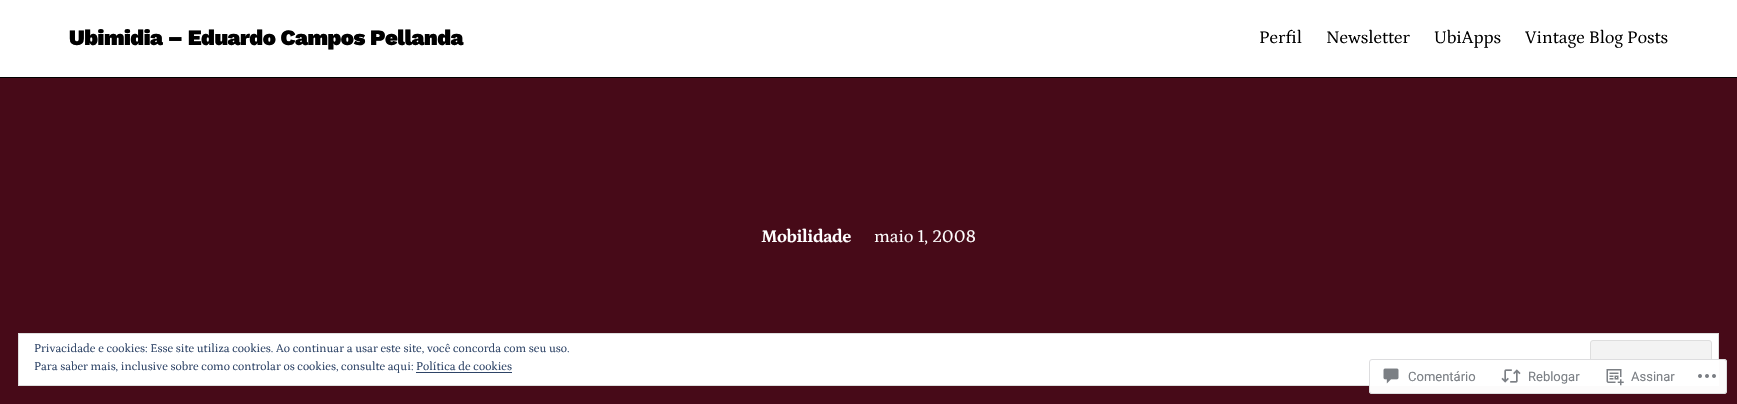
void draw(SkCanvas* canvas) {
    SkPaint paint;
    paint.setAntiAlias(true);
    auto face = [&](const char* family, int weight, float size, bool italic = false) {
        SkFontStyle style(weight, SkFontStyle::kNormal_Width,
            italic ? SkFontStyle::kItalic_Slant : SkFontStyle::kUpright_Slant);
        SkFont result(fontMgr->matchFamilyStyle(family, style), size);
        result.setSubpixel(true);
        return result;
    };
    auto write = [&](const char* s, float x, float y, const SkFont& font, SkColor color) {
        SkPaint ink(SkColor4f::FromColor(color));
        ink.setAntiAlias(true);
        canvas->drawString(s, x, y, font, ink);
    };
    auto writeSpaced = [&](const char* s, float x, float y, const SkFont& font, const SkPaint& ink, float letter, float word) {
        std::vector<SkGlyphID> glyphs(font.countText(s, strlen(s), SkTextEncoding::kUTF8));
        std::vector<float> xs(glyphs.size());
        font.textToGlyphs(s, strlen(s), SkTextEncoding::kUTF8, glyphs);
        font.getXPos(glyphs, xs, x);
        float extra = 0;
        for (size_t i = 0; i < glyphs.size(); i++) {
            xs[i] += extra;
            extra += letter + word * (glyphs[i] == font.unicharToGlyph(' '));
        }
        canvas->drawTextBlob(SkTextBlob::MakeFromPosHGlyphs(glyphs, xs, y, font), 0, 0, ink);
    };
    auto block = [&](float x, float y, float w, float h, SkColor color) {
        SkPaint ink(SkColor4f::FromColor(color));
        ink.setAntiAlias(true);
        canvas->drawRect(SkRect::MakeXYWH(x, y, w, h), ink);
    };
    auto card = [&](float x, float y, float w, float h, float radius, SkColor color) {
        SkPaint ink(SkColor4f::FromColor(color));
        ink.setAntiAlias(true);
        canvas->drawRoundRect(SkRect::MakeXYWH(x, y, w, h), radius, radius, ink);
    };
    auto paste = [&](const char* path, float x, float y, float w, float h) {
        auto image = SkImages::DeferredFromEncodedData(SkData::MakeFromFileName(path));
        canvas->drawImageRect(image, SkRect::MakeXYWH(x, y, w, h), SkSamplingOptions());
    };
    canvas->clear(SK_ColorWHITE);
    auto kFont1 = face("Work Sans", 900, 22);
    paint.setColor(SK_ColorBLACK);
    writeSpaced("Ubimidia – Eduardo Campos Pellanda", 69, 45, kFont1, paint, -0.45f, 0);
    auto kFont2 = face("Petrona", 400, 18);
    write("Perfil", 1259, 43, kFont2, SK_ColorBLACK);
    write("Newsletter", 1326, 43, kFont2, SK_ColorBLACK);
    write("UbiApps", 1434, 43, kFont2, SK_ColorBLACK);
    write("Vintage Blog Posts", 1525, 43, kFont2, SK_ColorBLACK);
    block(0, 77, 1737, 1, SK_ColorBLACK);
    block(0, 78, 1737, 326, SkColorSetRGB(71, 10, 24));
    auto kFont3 = face("Petrona", 700, 18);
    paint.setColor(SK_ColorWHITE);
    writeSpaced("Mobilidade", 761, 242, kFont3, paint, -0.5f, 0);
    write("maio 1, 2008", 874, 242, kFont2, SK_ColorWHITE);
    canvas->drawRect(SkRect::MakeXYWH(18.5f, 333.5f, 1700, 52), paint);
    paint.setStyle(SkPaint::kStroke_Style);
    paint.setStrokeWidth(1);
    paint.setColor(SkColorSetRGB(222, 222, 222));
    canvas->drawRect(SkRect::MakeXYWH(18.5f, 333.5f, 1700, 52), paint);
    auto kFont4 = face("Petrona", 400, 12);
    write("Privacidade e cookies: Esse site utiliza cookies. Ao continuar a usar este site, você concorda com seu uso.", 34, 352, kFont4, SkColorSetRGB(46, 68, 103));
    paint.setStyle(SkPaint::kFill_Style);
    paint.setColor(SkColorSetRGB(243, 243, 243));
    canvas->drawRoundRect(SkRect::MakeXYWH(1590.5f, 340.5f, 121, 38), 2.5f, 2.5f, paint);
    paint.setStyle(SkPaint::kStroke_Style);
    paint.setColor(SkColorSetRGB(222, 222, 222));
    canvas->drawRoundRect(SkRect::MakeXYWH(1590.5f, 340.5f, 121, 38), 2.5f, 2.5f, paint);
    write("Para saber mais, inclusive sobre como controlar os cookies, consulte aqui: Política de cookies", 34, 370, kFont4, SkColorSetRGB(46, 68, 103));
    block(416, 372, 96, 1, SkColorSetRGB(46, 68, 103));
    card(1369, 359, 358, 35, 3, SkColorSetARGB(250, 255, 255, 255));
    paint.setColor(SkColorSetARGB(250, 220, 220, 222));
    canvas->drawRoundRect(SkRect::MakeXYWH(1369.5f, 359.5f, 357, 34), 2.5f, 2.5f, paint);
    paste("pic1.png", 1383, 368, 16, 16);
    auto kFont5 = face("Roboto", 400, 13);
    write("Comentário", 1408, 381, kFont5, SkColorSetRGB(123, 127, 133));
    paste("pic2.png", 1501, 369, 20, 14);
    write("Reblogar", 1528, 381, kFont5, SkColorSetRGB(123, 127, 133));
    paste("pic3.png", 1606, 369, 18, 17);
    write("Assinar", 1631, 381, kFont5, SkColorSetRGB(123, 127, 133));
    paste("pic4.png", 1698, 374, 18, 4);
}
